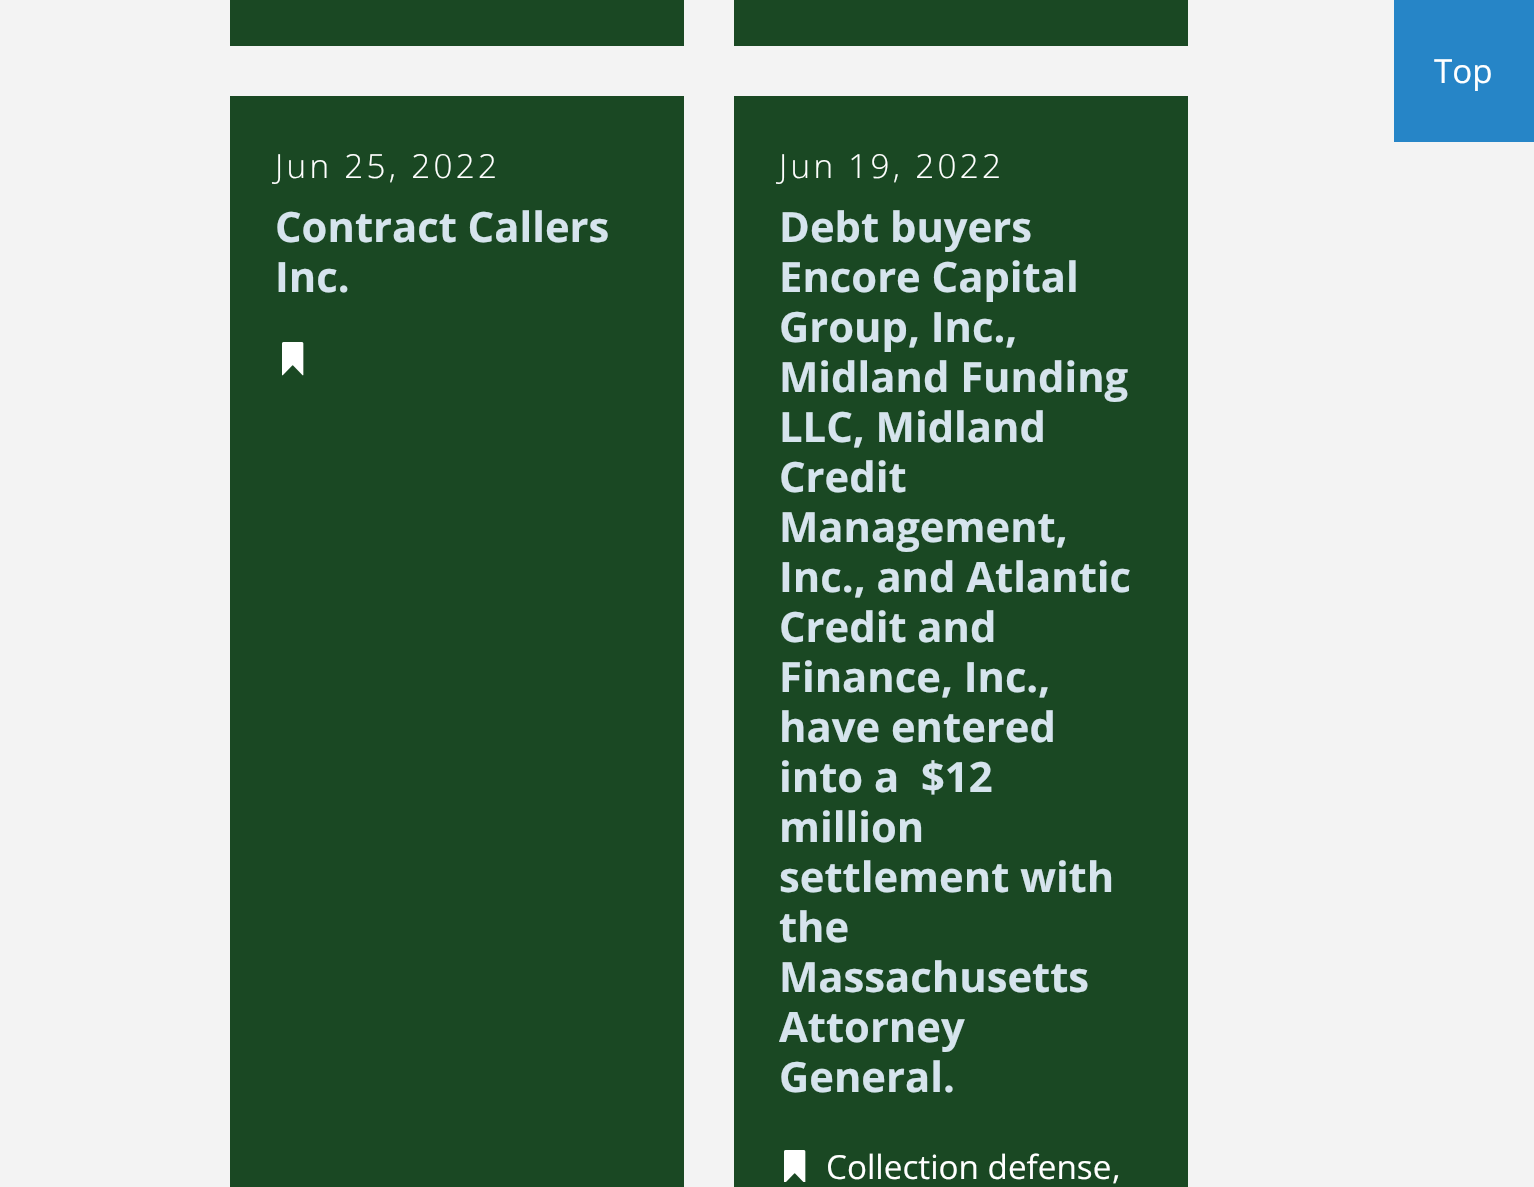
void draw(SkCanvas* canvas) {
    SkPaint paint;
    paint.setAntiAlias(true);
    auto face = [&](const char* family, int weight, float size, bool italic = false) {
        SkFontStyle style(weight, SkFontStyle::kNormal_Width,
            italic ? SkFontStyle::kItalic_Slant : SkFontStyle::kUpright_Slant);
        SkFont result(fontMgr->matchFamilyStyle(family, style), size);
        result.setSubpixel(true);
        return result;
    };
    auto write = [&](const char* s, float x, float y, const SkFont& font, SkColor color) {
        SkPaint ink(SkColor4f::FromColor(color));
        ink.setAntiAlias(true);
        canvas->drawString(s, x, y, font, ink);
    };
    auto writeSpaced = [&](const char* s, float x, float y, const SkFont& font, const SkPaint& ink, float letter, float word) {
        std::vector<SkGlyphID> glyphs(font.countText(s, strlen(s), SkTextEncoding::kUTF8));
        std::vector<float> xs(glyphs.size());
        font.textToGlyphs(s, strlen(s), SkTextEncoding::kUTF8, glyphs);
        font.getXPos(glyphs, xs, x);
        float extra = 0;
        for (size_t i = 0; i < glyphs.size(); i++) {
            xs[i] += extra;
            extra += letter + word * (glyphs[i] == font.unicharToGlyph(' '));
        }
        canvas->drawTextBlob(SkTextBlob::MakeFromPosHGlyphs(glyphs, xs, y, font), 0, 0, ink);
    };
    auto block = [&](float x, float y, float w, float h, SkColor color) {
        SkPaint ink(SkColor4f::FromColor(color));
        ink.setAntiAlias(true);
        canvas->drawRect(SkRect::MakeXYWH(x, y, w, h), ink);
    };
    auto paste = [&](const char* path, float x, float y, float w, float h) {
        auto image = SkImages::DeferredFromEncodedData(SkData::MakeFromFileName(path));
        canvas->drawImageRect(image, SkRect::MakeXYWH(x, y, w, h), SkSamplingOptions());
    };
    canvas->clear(SkColorSetRGB(243, 243, 243));
    block(1394, 0, 140, 142, SkColorSetRGB(38, 133, 199));
    auto kFont1 = face("Open Sans", 400, 33.25f);
    write("Top", 1434, 83, kFont1, SK_ColorWHITE);
    block(230, 0, 454, 46, SkColorSetRGB(26, 72, 35));
    block(734, 0, 454, 46, SkColorSetRGB(26, 72, 35));
    block(230, 96, 454, 1091, SkColorSetRGB(26, 72, 35));
    auto kFont2 = face("Open Sans", 300, 33.25f);
    paint.setColor(SK_ColorWHITE);
    writeSpaced("Jun 25, 2022", 275, 178, kFont2, paint, 3.3f, 0);
    auto kFont3 = face("Open Sans", 700, 41.75f);
    write("Contract Callers", 275, 242, kFont3, SkColorSetRGB(214, 228, 237));
    write("Inc.", 275, 292, kFont3, SkColorSetRGB(214, 228, 237));
    paste("pic1.png", 282, 342, 22, 34);
    block(734, 96, 454, 1091, SkColorSetRGB(26, 72, 35));
    writeSpaced("Jun 19, 2022", 779, 178, kFont2, paint, 3.3f, 0);
    write("Debt buyers", 779, 242, kFont3, SkColorSetRGB(214, 228, 237));
    write("Encore Capital", 779, 292, kFont3, SkColorSetRGB(214, 228, 237));
    write("Group, Inc.,", 779, 342, kFont3, SkColorSetRGB(214, 228, 237));
    write("Midland Funding", 779, 392, kFont3, SkColorSetRGB(214, 228, 237));
    write("LLC, Midland", 779, 442, kFont3, SkColorSetRGB(214, 228, 237));
    write("Credit", 779, 492, kFont3, SkColorSetRGB(214, 228, 237));
    write("Management,", 779, 542, kFont3, SkColorSetRGB(214, 228, 237));
    write("Inc., and Atlantic", 779, 592, kFont3, SkColorSetRGB(214, 228, 237));
    write("Credit and", 779, 642, kFont3, SkColorSetRGB(214, 228, 237));
    write("Finance, Inc.,", 779, 692, kFont3, SkColorSetRGB(214, 228, 237));
    write("have entered", 779, 742, kFont3, SkColorSetRGB(214, 228, 237));
    write("into a  $12", 779, 792, kFont3, SkColorSetRGB(214, 228, 237));
    write("million", 779, 842, kFont3, SkColorSetRGB(214, 228, 237));
    write("settlement with", 779, 892, kFont3, SkColorSetRGB(214, 228, 237));
    write("the", 779, 942, kFont3, SkColorSetRGB(214, 228, 237));
    write("Massachusetts", 779, 992, kFont3, SkColorSetRGB(214, 228, 237));
    write("Attorney", 779, 1042, kFont3, SkColorSetRGB(214, 228, 237));
    write("General.", 779, 1092, kFont3, SkColorSetRGB(214, 228, 237));
    paste("pic2.png", 784, 1150, 22, 32);
    write("Collection defense", 826, 1179, kFont1, SK_ColorWHITE);
    write(",", 1112, 1179, kFont1, SK_ColorWHITE);
}
